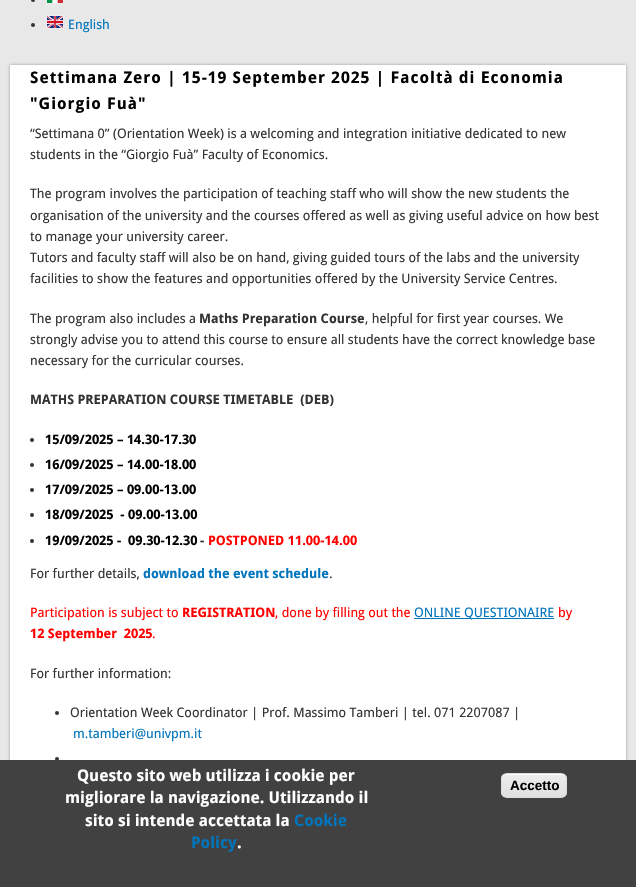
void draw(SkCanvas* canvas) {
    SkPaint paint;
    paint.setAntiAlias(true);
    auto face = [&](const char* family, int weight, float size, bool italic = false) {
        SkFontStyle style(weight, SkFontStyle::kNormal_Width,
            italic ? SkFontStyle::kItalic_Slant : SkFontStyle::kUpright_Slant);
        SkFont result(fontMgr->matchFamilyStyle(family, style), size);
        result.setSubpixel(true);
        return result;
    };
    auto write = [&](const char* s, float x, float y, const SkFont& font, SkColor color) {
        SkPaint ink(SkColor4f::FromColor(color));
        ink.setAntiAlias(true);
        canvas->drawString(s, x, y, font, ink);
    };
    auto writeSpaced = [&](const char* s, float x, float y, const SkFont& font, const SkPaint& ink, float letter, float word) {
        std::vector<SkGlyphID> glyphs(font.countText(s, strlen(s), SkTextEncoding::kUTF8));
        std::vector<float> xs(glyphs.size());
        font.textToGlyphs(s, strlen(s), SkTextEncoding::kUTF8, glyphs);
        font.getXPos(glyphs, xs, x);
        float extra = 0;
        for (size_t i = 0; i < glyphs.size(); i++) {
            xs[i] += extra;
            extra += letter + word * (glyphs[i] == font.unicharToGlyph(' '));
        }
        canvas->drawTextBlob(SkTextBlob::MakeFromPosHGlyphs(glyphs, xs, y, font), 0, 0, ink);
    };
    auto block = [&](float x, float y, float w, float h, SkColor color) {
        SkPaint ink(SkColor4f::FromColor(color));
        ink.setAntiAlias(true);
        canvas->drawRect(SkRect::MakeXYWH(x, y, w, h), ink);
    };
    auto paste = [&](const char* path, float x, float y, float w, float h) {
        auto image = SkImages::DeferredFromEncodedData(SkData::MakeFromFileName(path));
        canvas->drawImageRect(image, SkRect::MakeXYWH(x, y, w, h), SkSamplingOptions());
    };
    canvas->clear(SkColorSetRGB(232, 232, 232));
    paint.setColor(SkColorSetRGB(51, 51, 51));
    canvas->drawCircle(33, 0, 2, paint);
    paint.setStyle(SkPaint::kStroke_Style);
    paint.setStrokeWidth(1);
    paint.setColor(SkColorSetRGB(238, 238, 238));
    canvas->drawRect(SkRect::MakeXYWH(46.5f, -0.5f, 17, 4), paint);
    paste("pic1.png", 47, 0, 16, 3);
    paint.setStyle(SkPaint::kFill_Style);
    paint.setColor(SkColorSetRGB(51, 51, 51));
    canvas->drawCircle(33, 25, 2, paint);
    paint.setStyle(SkPaint::kStroke_Style);
    paint.setColor(SkColorSetRGB(238, 238, 238));
    canvas->drawRect(SkRect::MakeXYWH(46.5f, 15.5f, 17, 13), paint);
    paste("pic2.png", 47, 16, 16, 12);
    auto kFont1 = face("Droid Sans", 400, 13.1f);
    write("English", 68, 29, kFont1, SkColorSetRGB(0, 116, 189));
    paint.setStyle(SkPaint::kFill_Style);
    paint.setColor(SkColorSetRGB(153, 153, 153));
    paint.setMaskFilter(SkMaskFilter::MakeBlur(kNormal_SkBlurStyle, 1.5f));
    canvas->drawRect(SkRect::MakeXYWH(10, 65, 616, 758), paint);
    paint.setMaskFilter(nullptr);
    block(10, 65, 616, 695, SK_ColorWHITE);
    auto kFont2 = face("Droid Sans", 700, 16);
    paint.setColor(SK_ColorBLACK);
    writeSpaced("Settimana Zero | 15-19 September 2025 | Facoltà di Economia", 30, 83, kFont2, paint, 1, 0);
    writeSpaced("\"Giorgio Fuà\"", 30, 109, kFont2, paint, 1, 0);
    write("“Settimana 0” (Orientation Week) is a welcoming and integration initiative dedicated to new", 30, 138, kFont1, SkColorSetRGB(51, 51, 51));
    write("students in the “Giorgio Fuà” Faculty of Economics.", 30, 159, kFont1, SkColorSetRGB(51, 51, 51));
    write("The program involves the participation of teaching staff who will show the new students the", 30, 198, kFont1, SkColorSetRGB(51, 51, 51));
    write("organisation of the university and the courses offered as well as giving useful advice on how best", 30, 220, kFont1, SkColorSetRGB(51, 51, 51));
    write("to manage your university career.", 30, 241, kFont1, SkColorSetRGB(51, 51, 51));
    write("Tutors and faculty staff will also be on hand, giving guided tours of the labs and the university", 30, 262, kFont1, SkColorSetRGB(51, 51, 51));
    write("facilities to show the features and opportunities offered by the University Service Centres.", 30, 283, kFont1, SkColorSetRGB(51, 51, 51));
    write("The program also includes a", 30, 323, kFont1, SkColorSetRGB(51, 51, 51));
    auto kFont3 = face("Droid Sans", 700, 13.1f);
    write("Maths Preparation Course", 199, 323, kFont3, SkColorSetRGB(51, 51, 51));
    write(", helpful for first year courses. We", 365, 323, kFont1, SkColorSetRGB(51, 51, 51));
    write("strongly advise you to attend this course to ensure all students have the correct knowledge base", 30, 344, kFont1, SkColorSetRGB(51, 51, 51));
    write("necessary for the curricular courses.", 30, 365, kFont1, SkColorSetRGB(51, 51, 51));
    write("MATHS PREPARATION COURSE TIMETABLE  (DEB)", 30, 404, kFont3, SkColorSetRGB(51, 51, 51));
    paint.setColor(SkColorSetRGB(51, 51, 51));
    canvas->drawCircle(32, 440, 2, paint);
    write("15/09/2025 – 14.30-17.30", 45, 444, kFont3, SK_ColorBLACK);
    canvas->drawCircle(32, 465, 2, paint);
    write("16/09/2025 – 14.00-18.00", 45, 469, kFont3, SK_ColorBLACK);
    canvas->drawCircle(32, 490, 2, paint);
    write("17/09/2025 – 09.00-13.00", 45, 494, kFont3, SK_ColorBLACK);
    canvas->drawCircle(32, 515, 2, paint);
    write("18/09/2025  - 09.00-13.00", 45, 519, kFont3, SK_ColorBLACK);
    canvas->drawCircle(32, 541, 2, paint);
    write("19/09/2025 -  09.30-12.30", 45, 545, kFont3, SK_ColorBLACK);
    write("-", 200, 545, kFont3, SkColorSetRGB(51, 51, 51));
    write("POSTPONED 11.00-14.00", 208, 545, kFont3, SkColorSetRGB(255, 0, 0));
    write("For further details,", 30, 578, kFont1, SkColorSetRGB(51, 51, 51));
    write("download the event schedule", 143, 578, kFont3, SkColorSetRGB(0, 116, 189));
    write(".", 329, 578, kFont1, SkColorSetRGB(51, 51, 51));
    write("Participation is subject to", 30, 617, kFont1, SkColorSetRGB(255, 0, 0));
    write("REGISTRATION", 182, 617, kFont3, SkColorSetRGB(255, 0, 0));
    write(", done by filling out the", 275, 617, kFont1, SkColorSetRGB(255, 0, 0));
    block(414, 618, 140, 1, SkColorSetRGB(0, 116, 189));
    write("ONLINE QUESTIONAIRE", 414, 617, kFont1, SkColorSetRGB(0, 116, 189));
    write("by", 558, 617, kFont1, SkColorSetRGB(255, 0, 0));
    write("12 September  2025", 30, 638, kFont3, SkColorSetRGB(255, 0, 0));
    write(".", 152, 638, kFont1, SkColorSetRGB(255, 0, 0));
    write("For further information:", 30, 678, kFont1, SkColorSetRGB(51, 51, 51));
    canvas->drawCircle(57, 713, 2, paint);
    write("Orientation Week Coordinator | Prof. Massimo Tamberi | tel. 071 2207087 |", 70, 717, kFont1, SkColorSetRGB(51, 51, 51));
    write("m.tamberi@univpm.it", 73, 738, kFont1, SkColorSetRGB(0, 116, 189));
    canvas->drawCircle(57, 759, 2, paint);
    block(0, 760, 636, 127, SkColorSetRGB(65, 65, 65));
    write("Questo sito web utilizza i cookie per", 77, 781, kFont2, SK_ColorWHITE);
    write("migliorare la navigazione. Utilizzando il", 65, 803, kFont2, SK_ColorWHITE);
    write("sito si intende accettata la", 85, 826, kFont2, SK_ColorWHITE);
    write("Cookie", 294, 826, kFont2, SkColorSetRGB(0, 116, 189));
    write("Policy", 191, 848, kFont2, SkColorSetRGB(0, 116, 189));
    write(".", 237, 848, kFont2, SK_ColorWHITE);
    canvas->save();
    canvas->clipPath(SkPathBuilder().moveTo(507, 773).lineTo(561, 773).cubicTo(564.5f, 773, 567, 775.5f, 567, 779).lineTo(567, 792).cubicTo(567, 795.5f, 564.5f, 798, 561, 798).lineTo(507, 798).cubicTo(503.5f, 798, 501, 795.5f, 501, 792).lineTo(501, 779).cubicTo(501, 775.5f, 503.5f, 773, 507, 773).close().detach(), true);
    {
        const SkColor colors[] = {SkColorSetRGB(237, 237, 237), SkColorSetRGB(223, 223, 223)};
        const float stops[] = {0.05f, 1};
        const SkPoint ends[] = {{534, 774}, {534, 797}};
        paint.setShader(SkGradientShader::MakeLinear(ends, colors, stops, 2, SkTileMode::kClamp));
        paint.setAlpha(255);
    }
    canvas->drawRect(SkRect::MakeXYWH(501, 774, 66, 23), paint);
    canvas->restore();
    paint.setShader(nullptr);
    paint.setColor(SK_ColorWHITE);
    canvas->drawPath(SkPathBuilder().moveTo(507, 775).lineTo(561, 775).cubicTo(564, 775, 566, 777, 566, 780).cubicTo(566, 772, 558, 774, 552, 774).lineTo(516, 774).cubicTo(510, 774, 502, 772, 502, 780).cubicTo(502, 777, 504, 775, 507, 775).close().detach(), paint);
    paint.setStyle(SkPaint::kStroke_Style);
    paint.setColor(SkColorSetRGB(220, 220, 220));
    canvas->drawRoundRect(SkRect::MakeXYWH(501.5f, 773.5f, 65, 24), 5.5f, 5.5f, paint);
    auto kFont4 = face("Liberation Sans", 700, 13.5f);
    write("Accetto", 510, 790, kFont4, SK_ColorBLACK);
}
